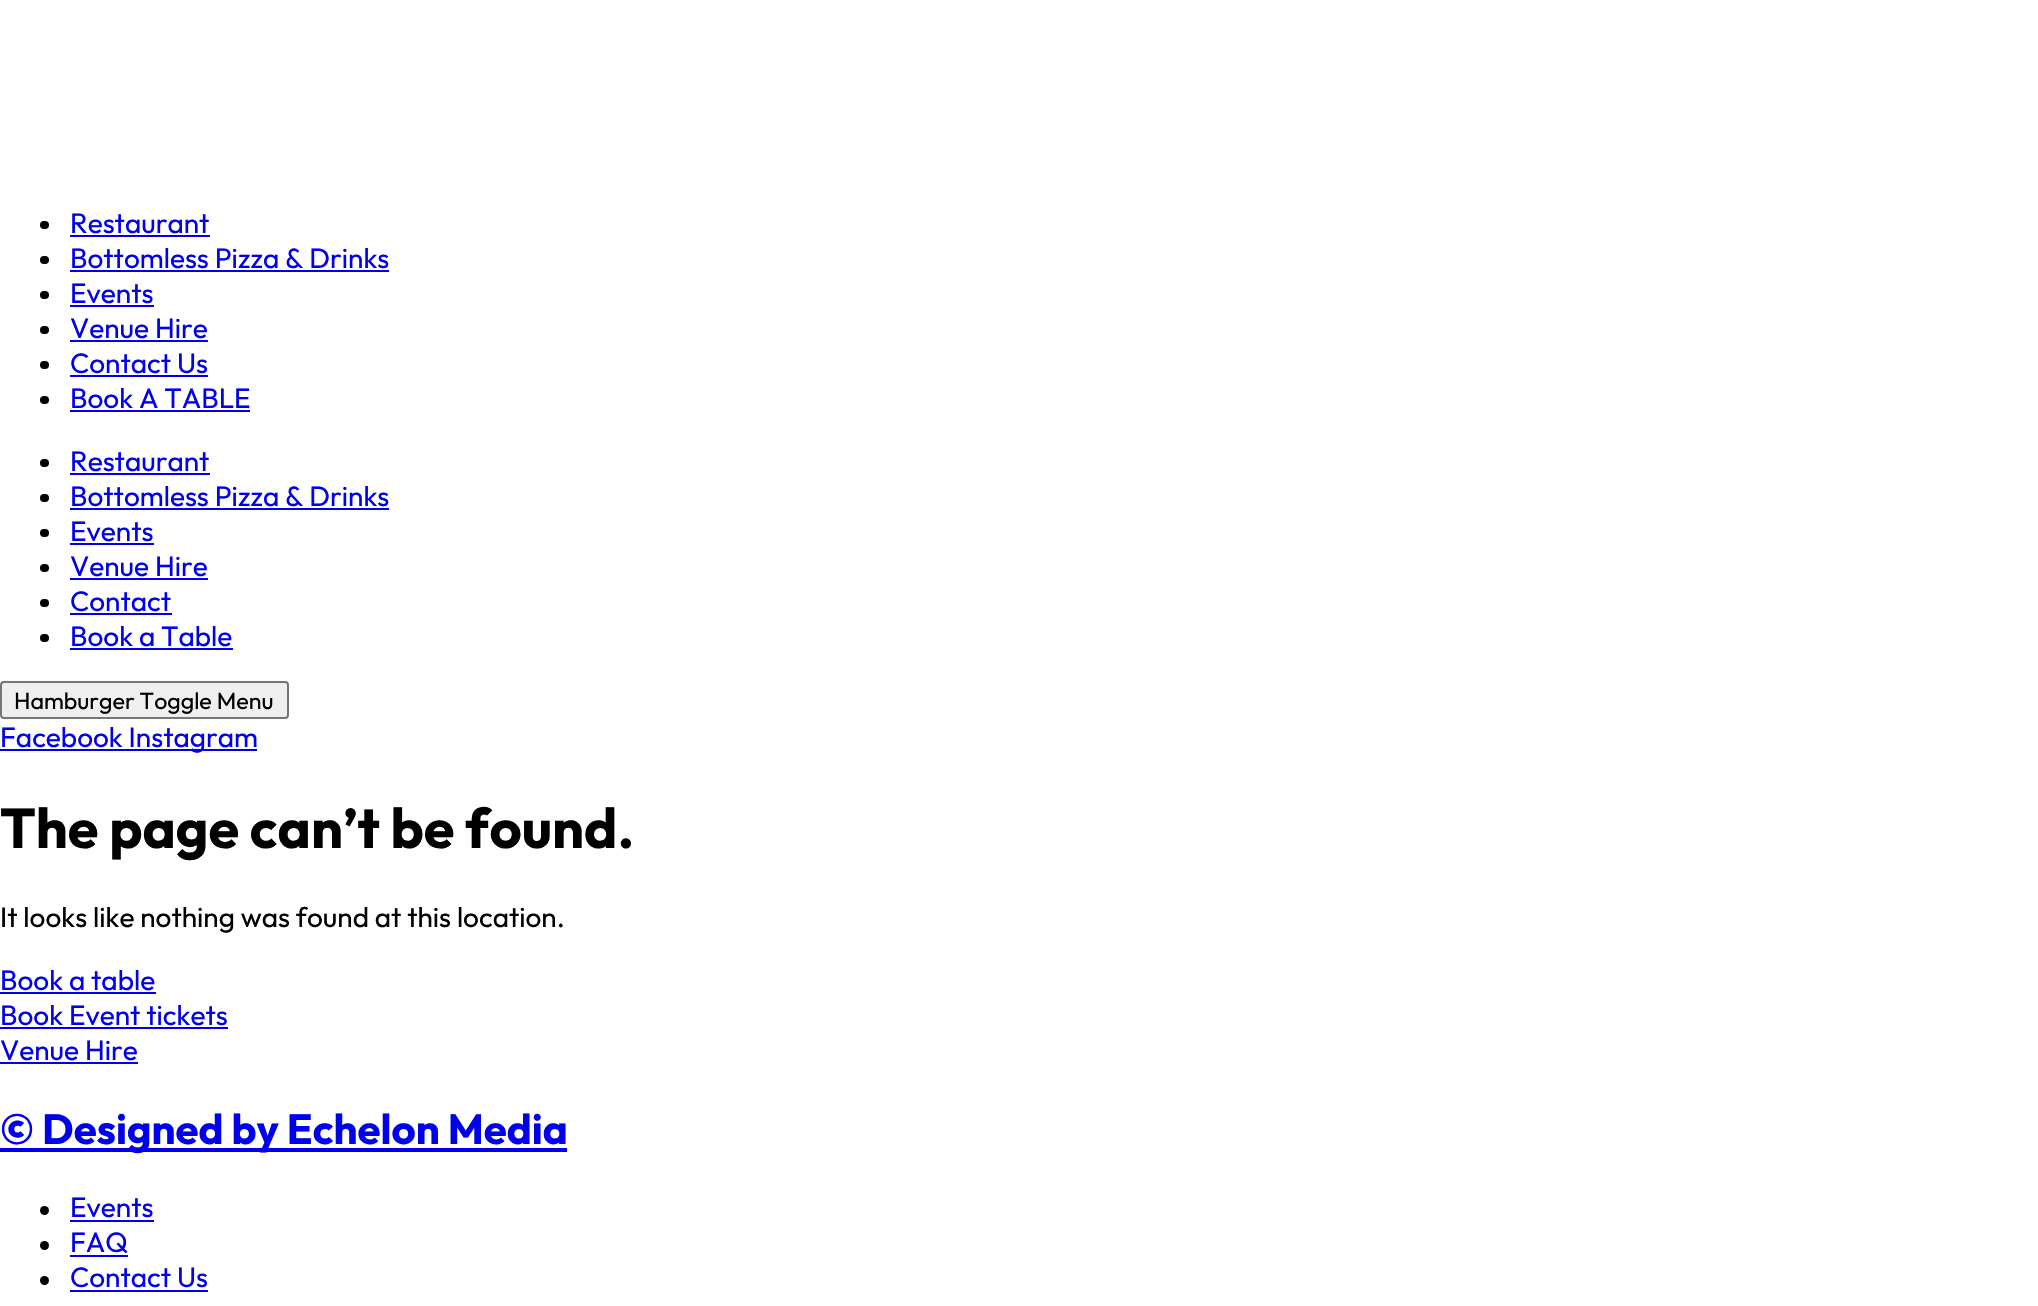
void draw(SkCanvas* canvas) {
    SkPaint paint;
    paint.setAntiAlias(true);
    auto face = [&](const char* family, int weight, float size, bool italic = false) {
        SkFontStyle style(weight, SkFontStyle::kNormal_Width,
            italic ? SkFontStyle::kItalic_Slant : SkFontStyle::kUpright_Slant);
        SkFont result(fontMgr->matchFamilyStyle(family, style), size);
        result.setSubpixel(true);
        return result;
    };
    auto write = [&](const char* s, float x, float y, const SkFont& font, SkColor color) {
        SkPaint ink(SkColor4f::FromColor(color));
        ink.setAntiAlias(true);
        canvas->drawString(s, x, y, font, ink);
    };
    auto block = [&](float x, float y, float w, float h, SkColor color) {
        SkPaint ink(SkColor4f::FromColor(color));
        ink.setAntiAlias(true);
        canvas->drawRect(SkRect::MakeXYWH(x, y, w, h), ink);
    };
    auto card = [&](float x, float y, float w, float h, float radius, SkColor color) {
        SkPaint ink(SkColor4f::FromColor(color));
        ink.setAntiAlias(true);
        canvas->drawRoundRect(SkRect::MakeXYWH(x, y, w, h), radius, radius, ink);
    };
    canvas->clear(SK_ColorWHITE);
    card(40, 221, 9, 8, 4, SK_ColorBLACK);
    auto kFont1 = face("Outfit", 400, 28);
    write("Restaurant", 70, 233, kFont1, SkColorSetRGB(0, 0, 238));
    block(70, 235, 140, 2, SkColorSetRGB(0, 0, 238));
    card(40, 256, 9, 8, 4, SK_ColorBLACK);
    write("Bottomless Pizza & Drinks", 70, 268, kFont1, SkColorSetRGB(0, 0, 238));
    block(70, 270, 319, 2, SkColorSetRGB(0, 0, 238));
    card(40, 291, 9, 8, 4, SK_ColorBLACK);
    write("Events", 70, 303, kFont1, SkColorSetRGB(0, 0, 238));
    block(70, 305, 84, 2, SkColorSetRGB(0, 0, 238));
    card(40, 326, 9, 8, 4, SK_ColorBLACK);
    write("Venue Hire", 70, 338, kFont1, SkColorSetRGB(0, 0, 238));
    block(70, 340, 138, 2, SkColorSetRGB(0, 0, 238));
    card(40, 361, 9, 8, 4, SK_ColorBLACK);
    write("Contact Us", 70, 373, kFont1, SkColorSetRGB(0, 0, 238));
    block(70, 375, 138, 2, SkColorSetRGB(0, 0, 238));
    card(40, 396, 9, 8, 4, SK_ColorBLACK);
    write("Book A TABLE", 70, 408, kFont1, SkColorSetRGB(0, 0, 238));
    block(70, 410, 180, 2, SkColorSetRGB(0, 0, 238));
    card(40, 459, 9, 8, 4, SK_ColorBLACK);
    write("Restaurant", 70, 471, kFont1, SkColorSetRGB(0, 0, 238));
    block(70, 473, 140, 2, SkColorSetRGB(0, 0, 238));
    card(40, 494, 9, 8, 4, SK_ColorBLACK);
    write("Bottomless Pizza & Drinks", 70, 506, kFont1, SkColorSetRGB(0, 0, 238));
    block(70, 508, 319, 2, SkColorSetRGB(0, 0, 238));
    card(40, 529, 9, 8, 4, SK_ColorBLACK);
    write("Events", 70, 541, kFont1, SkColorSetRGB(0, 0, 238));
    block(70, 543, 84, 2, SkColorSetRGB(0, 0, 238));
    card(40, 564, 9, 8, 4, SK_ColorBLACK);
    write("Venue Hire", 70, 576, kFont1, SkColorSetRGB(0, 0, 238));
    block(70, 578, 138, 2, SkColorSetRGB(0, 0, 238));
    card(40, 599, 9, 8, 4, SK_ColorBLACK);
    write("Contact", 70, 611, kFont1, SkColorSetRGB(0, 0, 238));
    block(70, 613, 102, 2, SkColorSetRGB(0, 0, 238));
    card(40, 634, 9, 8, 4, SK_ColorBLACK);
    write("Book a Table", 70, 646, kFont1, SkColorSetRGB(0, 0, 238));
    block(70, 648, 163, 2, SkColorSetRGB(0, 0, 238));
    paint.setColor(SkColorSetRGB(239, 239, 239));
    canvas->drawRoundRect(SkRect::MakeXYWH(1, 682, 287, 36), 3, 3, paint);
    paint.setStyle(SkPaint::kStroke_Style);
    paint.setStrokeWidth(2);
    paint.setColor(SkColorSetRGB(118, 118, 118));
    canvas->drawRoundRect(SkRect::MakeXYWH(1, 682, 287, 36), 3, 3, paint);
    auto kFont2 = face("Outfit", 400, 23.25f);
    write("Hamburger Toggle Menu", 14, 709, kFont2, SK_ColorBLACK);
    block(0, 749, 257, 2, SkColorSetRGB(0, 0, 238));
    write("Facebook Instagram", 0, 747, kFont1, SkColorSetRGB(0, 0, 238));
    auto kFont3 = face("Outfit", 700, 56);
    write("The page can’t be found.", 0, 848, kFont3, SK_ColorBLACK);
    write("It looks like nothing was found at this location.", 0, 927, kFont1, SK_ColorBLACK);
    write("Book a table", 0, 990, kFont1, SkColorSetRGB(0, 0, 238));
    block(0, 992, 156, 2, SkColorSetRGB(0, 0, 238));
    write("Book Event tickets", 0, 1025, kFont1, SkColorSetRGB(0, 0, 238));
    block(0, 1027, 228, 2, SkColorSetRGB(0, 0, 238));
    write("Venue Hire", 0, 1060, kFont1, SkColorSetRGB(0, 0, 238));
    block(0, 1062, 138, 2, SkColorSetRGB(0, 0, 238));
    block(0, 1148, 567, 4, SkColorSetRGB(0, 0, 238));
    auto kFont4 = face("Outfit", 700, 42);
    write("© Designed by Echelon Media", 0, 1144, kFont4, SkColorSetRGB(0, 0, 238));
    paint.setStyle(SkPaint::kFill_Style);
    paint.setColor(SK_ColorBLACK);
    canvas->drawCircle(44.5f, 1210.5f, 4.5f, paint);
    write("Events", 70, 1217, kFont1, SkColorSetRGB(0, 0, 238));
    block(70, 1220, 84, 2, SkColorSetRGB(0, 0, 238));
    canvas->drawCircle(44.5f, 1245.5f, 4.5f, paint);
    write("FAQ", 70, 1252, kFont1, SkColorSetRGB(0, 0, 238));
    block(70, 1255, 58, 2, SkColorSetRGB(0, 0, 238));
    canvas->drawCircle(44.5f, 1280.5f, 4.5f, paint);
    write("Contact Us", 70, 1287, kFont1, SkColorSetRGB(0, 0, 238));
    block(70, 1290, 138, 2, SkColorSetRGB(0, 0, 238));
}
